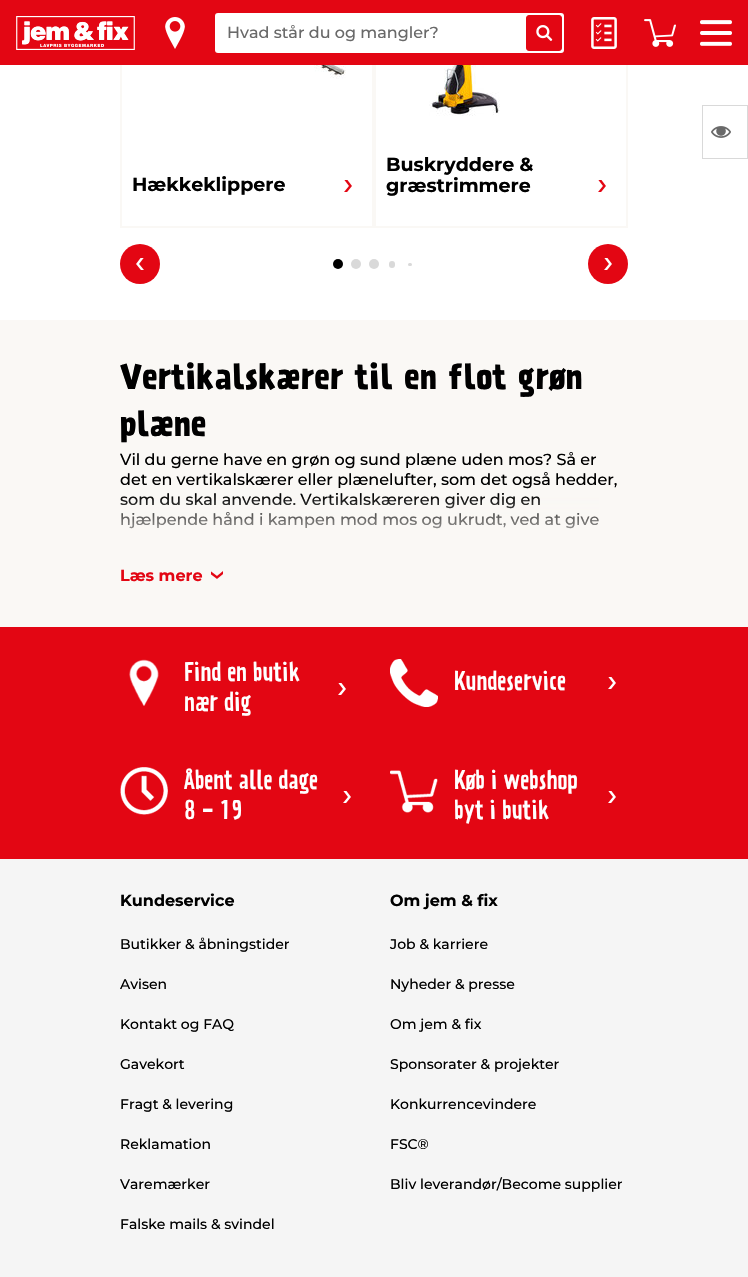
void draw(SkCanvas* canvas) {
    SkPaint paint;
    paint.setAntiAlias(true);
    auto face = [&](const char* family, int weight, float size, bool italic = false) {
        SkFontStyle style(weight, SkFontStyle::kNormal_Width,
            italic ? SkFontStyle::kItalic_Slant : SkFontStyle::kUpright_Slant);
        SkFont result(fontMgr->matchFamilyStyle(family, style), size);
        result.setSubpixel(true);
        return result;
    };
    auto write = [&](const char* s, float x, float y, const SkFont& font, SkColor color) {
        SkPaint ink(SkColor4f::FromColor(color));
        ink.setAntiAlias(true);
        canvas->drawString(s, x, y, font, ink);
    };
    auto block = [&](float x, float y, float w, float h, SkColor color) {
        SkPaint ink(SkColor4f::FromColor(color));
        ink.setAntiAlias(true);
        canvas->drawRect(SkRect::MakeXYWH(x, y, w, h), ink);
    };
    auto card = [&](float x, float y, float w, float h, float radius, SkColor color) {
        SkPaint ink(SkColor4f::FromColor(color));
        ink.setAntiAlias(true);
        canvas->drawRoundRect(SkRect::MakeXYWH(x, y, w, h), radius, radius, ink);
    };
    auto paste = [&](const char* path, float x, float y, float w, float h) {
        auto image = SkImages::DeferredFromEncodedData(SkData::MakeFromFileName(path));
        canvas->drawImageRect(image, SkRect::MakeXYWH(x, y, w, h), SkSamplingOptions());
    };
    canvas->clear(SkColorSetRGB(250, 248, 245));
    block(0, 65, 748, 255, SK_ColorWHITE);
    paint.setStyle(SkPaint::kStroke_Style);
    paint.setStrokeWidth(2);
    paint.setColor(SkColorSetRGB(250, 248, 245));
    canvas->drawRect(SkRect::MakeXYWH(121, -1, 252, 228), paint);
    canvas->drawRect(SkRect::MakeXYWH(375, -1, 252, 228), paint);
    block(0, 0, 748, 65, SkColorSetRGB(227, 6, 19));
    paste("pic1.png", 16, 16, 119, 34);
    paste("pic2.png", 165, 17, 20, 32);
    card(215, 13, 349, 40, 3, SK_ColorWHITE);
    auto kFont1 = face("Montserrat", 500, 16);
    write("Hvad står du og mangler?", 227, 38, kFont1, SkColorSetRGB(105, 105, 105));
    paint.setStyle(SkPaint::kFill_Style);
    paint.setColor(SkColorSetRGB(227, 6, 19));
    canvas->drawRoundRect(SkRect::MakeXYWH(526.5f, 15.5f, 35, 35), 2.5f, 2.5f, paint);
    paint.setStyle(SkPaint::kStroke_Style);
    paint.setStrokeWidth(1);
    canvas->drawRoundRect(SkRect::MakeXYWH(526.5f, 15.5f, 35, 35), 2.5f, 2.5f, paint);
    paste("pic3.png", 536, 25, 17, 16);
    paste("pic4.png", 591, 17, 26, 32);
    paste("pic5.png", 644, 19, 32, 28);
    paste("pic6.png", 700, 20, 32, 26);
    paint.setColor(SkColorSetRGB(217, 217, 217));
    canvas->drawRect(SkRect::MakeXYWH(702.5f, 105.5f, 45, 53), paint);
    paste("pic7.png", 711, 126, 20, 12);
    paste("pic8.png", 178, 65, 168, 14);
    auto kFont2 = face("Montserrat", 700, 19);
    write("Hækkeklippere", 132, 191, kFont2, SK_ColorBLACK);
    paste("pic9.png", 344, 180, 8, 12);
    paste("pic10.png", 429, 65, 71, 51);
    write("Buskryddere &", 386, 171, kFont2, SK_ColorBLACK);
    write("græstrimmere", 386, 192, kFont2, SK_ColorBLACK);
    paste("pic9.png", 598, 180, 8, 12);
    paint.setStyle(SkPaint::kFill_Style);
    paint.setColor(SkColorSetRGB(227, 6, 19));
    canvas->drawCircle(140, 264, 20, paint);
    paste("pic11.png", 136, 258, 8, 12);
    paint.setColor(SK_ColorBLACK);
    canvas->drawCircle(338, 264, 5, paint);
    paint.setColor(SkColorSetRGB(217, 217, 217));
    canvas->drawCircle(356, 264, 5, paint);
    canvas->drawCircle(374, 264, 5, paint);
    card(389, 261, 6, 7, 3, SkColorSetRGB(217, 217, 217));
    card(408, 263, 4, 3, 1.5f, SkColorSetRGB(217, 217, 217));
    paint.setColor(SkColorSetRGB(227, 6, 19));
    canvas->drawCircle(608, 264, 20, paint);
    paste("pic12.png", 604, 258, 8, 12);
    auto kFont3 = face("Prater", 400, 32);
    write("Vertikalskærer til en flot grøn", 120, 389, kFont3, SK_ColorBLACK);
    write("plæne", 120, 436, kFont3, SK_ColorBLACK);
    write("Vil du gerne have en grøn og sund plæne uden mos? Så er", 120, 465, kFont1, SK_ColorBLACK);
    write("det en vertikalskærer eller plænelufter, som det også hedder,", 120, 485, kFont1, SK_ColorBLACK);
    write("som du skal anvende. Vertikalskæreren giver dig en", 120, 505, kFont1, SK_ColorBLACK);
    write("hjælpende hånd i kampen mod mos og ukrudt, ved at give", 120, 525, kFont1, SK_ColorBLACK);
    {
        const SkColor colors[] = {SkColorSetARGB(0, 250, 248, 245), SkColorSetRGB(250, 248, 245)};
        const float stops[] = {0, 1};
        const SkPoint ends[] = {{374, 494}, {374, 554}};
        paint.setShader(SkGradientShader::MakeLinear(ends, colors, stops, 2, SkTileMode::kClamp));
        paint.setAlpha(255);
    }
    canvas->drawRect(SkRect::MakeXYWH(120, 495, 479, 34), paint);
    auto kFont4 = face("Montserrat", 700, 16);
    write("Læs mere", 120, 581, kFont4, SkColorSetRGB(227, 6, 19));
    paste("pic13.png", 211, 571, 12, 8);
    block(0, 627, 748, 232, SkColorSetRGB(227, 6, 19));
    paste("pic14.png", 129, 659, 30, 47);
    auto kFont5 = face("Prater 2", 400, 24);
    write("Find en butik", 184, 681, kFont5, SK_ColorWHITE);
    write("nær dig", 184, 711, kFont5, SK_ColorWHITE);
    paste("pic12.png", 338, 683, 8, 12);
    paste("pic15.png", 390, 659, 48, 48);
    write("Kundeservice", 454, 690, kFont5, SK_ColorWHITE);
    paste("pic12.png", 608, 677, 8, 12);
    paste("pic16.png", 120, 767, 48, 48);
    write("Åbent alle dage", 184, 789, kFont5, SK_ColorWHITE);
    write("8 - 19", 184, 819, kFont5, SK_ColorWHITE);
    paste("pic12.png", 343, 791, 8, 12);
    paste("pic17.png", 390, 770, 48, 43);
    write("Køb i webshop", 454, 789, kFont5, SK_ColorWHITE);
    write("byt i butik", 454, 819, kFont5, SK_ColorWHITE);
    paste("pic12.png", 608, 791, 8, 12);
    block(0, 859, 748, 418, SkColorSetRGB(245, 245, 245));
    write("Kundeservice", 120, 906, kFont4, SK_ColorBLACK);
    auto kFont6 = face("Montserrat", 500, 14);
    write("Butikker & åbningstider", 120, 949, kFont6, SK_ColorBLACK);
    write("Avisen", 120, 989, kFont6, SK_ColorBLACK);
    write("Kontakt og FAQ", 120, 1029, kFont6, SK_ColorBLACK);
    write("Gavekort", 120, 1069, kFont6, SK_ColorBLACK);
    write("Fragt & levering", 120, 1109, kFont6, SK_ColorBLACK);
    write("Reklamation", 120, 1149, kFont6, SK_ColorBLACK);
    write("Varemærker", 120, 1189, kFont6, SK_ColorBLACK);
    write("Falske mails & svindel", 120, 1229, kFont6, SK_ColorBLACK);
    write("Om jem & fix", 390, 906, kFont4, SK_ColorBLACK);
    write("Job & karriere", 390, 949, kFont6, SK_ColorBLACK);
    write("Nyheder & presse", 390, 989, kFont6, SK_ColorBLACK);
    write("Om jem & fix", 390, 1029, kFont6, SK_ColorBLACK);
    write("Sponsorater & projekter", 390, 1069, kFont6, SK_ColorBLACK);
    write("Konkurrencevindere", 390, 1109, kFont6, SK_ColorBLACK);
    write("FSC®", 390, 1149, kFont6, SK_ColorBLACK);
    write("Bliv leverandør/Become supplier", 390, 1189, kFont6, SK_ColorBLACK);
}
